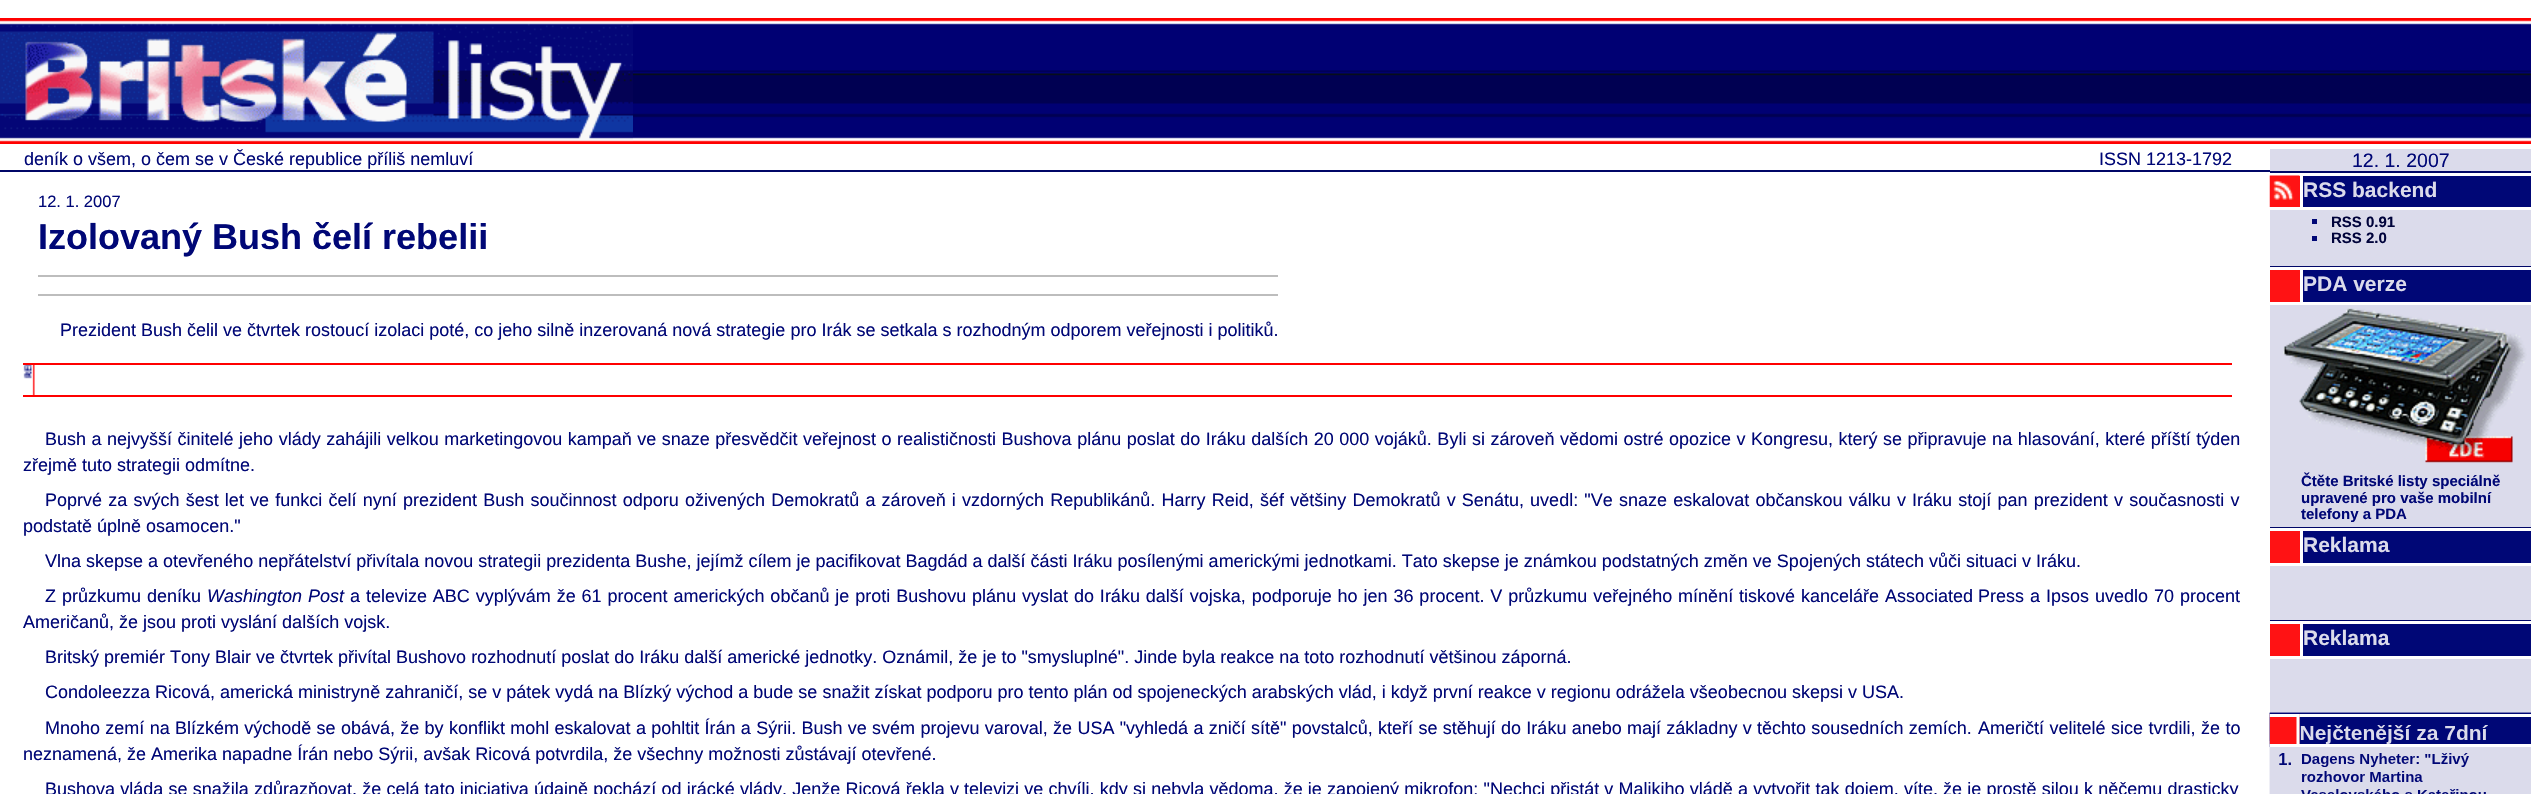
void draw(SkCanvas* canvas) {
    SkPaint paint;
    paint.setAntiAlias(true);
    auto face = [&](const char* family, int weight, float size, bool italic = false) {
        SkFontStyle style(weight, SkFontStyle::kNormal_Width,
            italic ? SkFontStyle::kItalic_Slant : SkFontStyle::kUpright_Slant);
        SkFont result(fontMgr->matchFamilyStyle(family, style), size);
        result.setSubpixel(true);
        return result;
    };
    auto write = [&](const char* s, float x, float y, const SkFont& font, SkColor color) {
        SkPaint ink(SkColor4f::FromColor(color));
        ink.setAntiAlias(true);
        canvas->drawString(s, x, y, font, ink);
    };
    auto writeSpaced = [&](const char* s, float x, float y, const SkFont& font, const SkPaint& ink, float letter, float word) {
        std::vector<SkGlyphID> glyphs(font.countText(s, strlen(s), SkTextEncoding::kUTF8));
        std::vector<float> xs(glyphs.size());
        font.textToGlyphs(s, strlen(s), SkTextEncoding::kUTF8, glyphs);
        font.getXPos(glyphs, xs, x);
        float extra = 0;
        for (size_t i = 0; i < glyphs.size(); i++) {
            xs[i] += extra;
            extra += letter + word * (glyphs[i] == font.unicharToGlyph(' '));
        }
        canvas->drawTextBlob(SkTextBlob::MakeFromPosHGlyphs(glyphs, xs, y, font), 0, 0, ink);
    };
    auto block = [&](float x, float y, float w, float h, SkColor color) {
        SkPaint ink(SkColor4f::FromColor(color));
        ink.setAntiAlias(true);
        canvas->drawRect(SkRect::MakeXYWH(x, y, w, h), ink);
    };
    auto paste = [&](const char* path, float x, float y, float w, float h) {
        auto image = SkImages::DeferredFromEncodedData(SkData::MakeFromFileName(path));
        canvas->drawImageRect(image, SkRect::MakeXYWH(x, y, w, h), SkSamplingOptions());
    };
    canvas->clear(SK_ColorWHITE);
    paste("pic1.png", 0, 18, 2531, 126);
    paste("pic2.png", 0, 20, 633, 122);
    block(0, 170, 2270, 2, SkColorSetRGB(0, 6, 103));
    auto kFont1 = face("Liberation Sans", 400, 18);
    write("deník o všem, o čem se v České republice příliš nemluví", 24, 165, kFont1, SkColorSetRGB(0, 7, 118));
    write("ISSN 1213-1792", 2099, 165, kFont1, SkColorSetRGB(0, 7, 118));
    block(2270, 149, 261, 564, SkColorSetRGB(219, 219, 235));
    auto kFont2 = face("Liberation Sans", 400, 19.5f);
    write("12. 1. 2007", 2352, 167, kFont2, SkColorSetRGB(0, 7, 118));
    block(2303, 176, 228, 31, SkColorSetRGB(0, 7, 118));
    block(2270, 171, 261, 2, SkColorSetRGB(0, 6, 103));
    block(2270, 207, 261, 3, SK_ColorWHITE);
    block(2299, 176, 1, 31, SkColorSetRGB(255, 18, 20));
    block(2270, 173, 261, 3, SK_ColorWHITE);
    block(2300, 173, 3, 34, SK_ColorWHITE);
    paste("pic3.png", 2269, 175, 31, 32);
    auto kFont3 = face("Liberation Sans", 700, 21);
    write("RSS backend", 2303, 197, kFont3, SkColorSetRGB(219, 219, 235));
    block(2312, 219, 5, 5, SkColorSetRGB(0, 7, 118));
    auto kFont4 = face("Liberation Sans", 700, 15);
    write("RSS 0.91", 2331, 227, kFont4, SkColorSetRGB(0, 3, 59));
    block(2312, 236, 5, 5, SkColorSetRGB(0, 7, 118));
    write("RSS 2.0", 2331, 243, kFont4, SkColorSetRGB(0, 3, 59));
    block(2303, 270, 228, 32, SkColorSetRGB(0, 7, 118));
    block(2270, 266, 261, 1, SkColorSetRGB(0, 6, 103));
    block(2270, 302, 261, 3, SK_ColorWHITE);
    block(2270, 270, 30, 32, SkColorSetRGB(255, 18, 20));
    block(2270, 267, 261, 3, SK_ColorWHITE);
    block(2300, 267, 3, 35, SK_ColorWHITE);
    write("PDA verze", 2303, 291, kFont3, SkColorSetRGB(219, 219, 235));
    paste("pic4.png", 2283, 307, 244, 156);
    write("Čtěte Britské listy speciálně", 2301, 486, kFont4, SkColorSetRGB(0, 7, 118));
    write("upravené pro vaše mobilní", 2301, 503, kFont4, SkColorSetRGB(0, 7, 118));
    write("telefony a PDA", 2301, 519, kFont4, SkColorSetRGB(0, 7, 118));
    block(2303, 531, 228, 32, SkColorSetRGB(0, 7, 118));
    block(2270, 527, 261, 1, SkColorSetRGB(0, 6, 103));
    block(2270, 563, 261, 3, SK_ColorWHITE);
    block(2270, 531, 30, 32, SkColorSetRGB(255, 18, 20));
    block(2270, 528, 261, 3, SK_ColorWHITE);
    block(2300, 528, 3, 35, SK_ColorWHITE);
    write("Reklama", 2303, 552, kFont3, SkColorSetRGB(219, 219, 235));
    block(2303, 624, 228, 32, SkColorSetRGB(0, 7, 118));
    block(2270, 620, 261, 1, SkColorSetRGB(0, 6, 103));
    block(2270, 656, 261, 3, SK_ColorWHITE);
    block(2270, 624, 30, 32, SkColorSetRGB(255, 18, 20));
    block(2270, 621, 261, 3, SK_ColorWHITE);
    block(2300, 621, 3, 35, SK_ColorWHITE);
    write("Reklama", 2303, 645, kFont3, SkColorSetRGB(219, 219, 235));
    paste("pic5.png", 2269, 712, 262, 82);
    auto kFont5 = face("Liberation Sans", 400, 16.5f);
    write("12. 1. 2007", 38, 207, kFont5, SkColorSetRGB(0, 7, 118));
    auto kFont6 = face("Liberation Sans", 700, 36);
    write("Izolovaný Bush čelí rebelii", 38, 249, kFont6, SkColorSetRGB(0, 7, 118));
    block(38, 275, 1240, 2, SkColorSetRGB(189, 189, 189));
    block(38, 294, 1240, 2, SkColorSetRGB(189, 189, 189));
    write("Prezident Bush čelil ve čtvrtek rostoucí izolaci poté, co jeho silně inzerovaná nová strategie pro Irák se setkala s rozhodným odporem veřejnosti i politiků.", 60, 336, kFont1, SkColorSetRGB(0, 7, 118));
    paste("pic6.png", 23, 365, 12, 30);
    block(23, 363, 2209, 2, SkColorSetRGB(255, 0, 0));
    block(23, 395, 2209, 2, SkColorSetRGB(255, 0, 0));
    paint.setColor(SkColorSetRGB(0, 7, 118));
    writeSpaced("Bush a nejvyšší činitelé jeho vlády zahájili velkou marketingovou kampaň ve snaze přesvědčit", 45, 445, kFont1, paint, 0, 0.5f);
    writeSpaced("veřejnost o realističnosti Bushova plánu poslat do Iráku dalších 20 000 vojáků. Byli si zároveň vědomi ostré opozice v Kongresu, který se připravuje na hlasování, které příští týden", 803, 445, kFont1, paint, 0, 0.5f);
    write("zřejmě tuto strategii odmítne.", 23, 471, kFont1, SkColorSetRGB(0, 7, 118));
    writeSpaced("Poprvé za svých šest let ve funkci čelí nyní prezident Bush součinnost odporu oživených Demokratů a zároveň i vzdorných Republikánů. Harry Reid, šéf většiny Demokratů v Senátu, uvedl: \"Ve snaze eskalovat občanskou válku v Iráku stojí pan prezident v současnosti v", 45, 506, kFont1, paint, 0, 1.2f);
    write("podstatě úplně osamocen.\"", 23, 532, kFont1, SkColorSetRGB(0, 7, 118));
    write("Vlna skepse a otevřeného nepřátelství přivítala novou strategii prezidenta Bushe, jejímž cílem je pacifikovat Bagdád a další části Iráku posílenými americkými jednotkami. Tato skepse je známkou podstatných změn ve Spojených státech vůči situaci v Iráku.", 45, 567, kFont1, SkColorSetRGB(0, 7, 118));
    writeSpaced("Z průzkumu deníku", 45, 602, kFont1, paint, 0, 1);
    auto kFont7 = face("Liberation Sans", 400, 18, true);
    writeSpaced("Washington Post", 207, 602, kFont7, paint, 0, 1);
    writeSpaced("a televize ABC vyplývám že 61 procent amerických občanů je proti Bushovu plánu vyslat do Iráku další vojska, podporuje ho jen 36 procent. V průzkumu veřejného mínění tiskové kanceláře Associated", 350, 602, kFont1, paint, 0, 0.9f);
    writeSpaced("Press a Ipsos", 1978, 602, kFont1, paint, 0, 1);
    writeSpaced("uvedlo 70 procent", 2095, 602, kFont1, paint, 0, 1);
    write("Američanů, že jsou proti vyslání dalších vojsk.", 23, 628, kFont1, SkColorSetRGB(0, 7, 118));
    write("Britský premiér Tony Blair ve čtvrtek přivítal Bushovo rozhodnutí poslat do Iráku další americké jednotky. Oznámil, že je to \"smysluplné\". Jinde byla reakce na toto rozhodnutí většinou záporná.", 45, 663, kFont1, SkColorSetRGB(0, 7, 118));
    write("Condoleezza Ricová, americká ministryně zahraničí, se v pátek vydá na Blízký východ a bude se snažit získat podporu pro tento plán od spojeneckých arabských vlád, i když první reakce v regionu odrážela všeobecnou skepsi v USA.", 45, 698, kFont1, SkColorSetRGB(0, 7, 118));
    writeSpaced("Mnoho zemí na Blízkém východě se obává, že by konflikt mohl eskalovat a pohltit Írán a Sýrii. Bush ve svém projevu varoval, že USA \"vyhledá a zničí sítě\" povstalců, kteří se stěhují do Iráku anebo mají základny v těchto sousedních zemích.", 45, 734, kFont1, paint, 0, 0.3f);
    writeSpaced("Američtí velitelé sice tvrdili, že to", 1978, 734, kFont1, paint, 0, 0.5f);
    write("neznamená, že Amerika napadne Írán nebo Sýrii, avšak Ricová potvrdila, že všechny možnosti zůstávají otevřené.", 23, 760, kFont1, SkColorSetRGB(0, 7, 118));
    writeSpaced("Bushova vláda se snažila zdůrazňovat, že celá tato iniciativa údajně pochází od irácké vlády. Jenže Ricová řekla v televizi ve chvíli, kdy si nebyla vědoma, že je zapojený mikrofon: \"Nechci přistát v Malikiho vládě a vytvořit tak dojem, víte, že je prostě silou k něčemu drasticky", 45, 795, kFont1, paint, 0, 0.2f);
}
